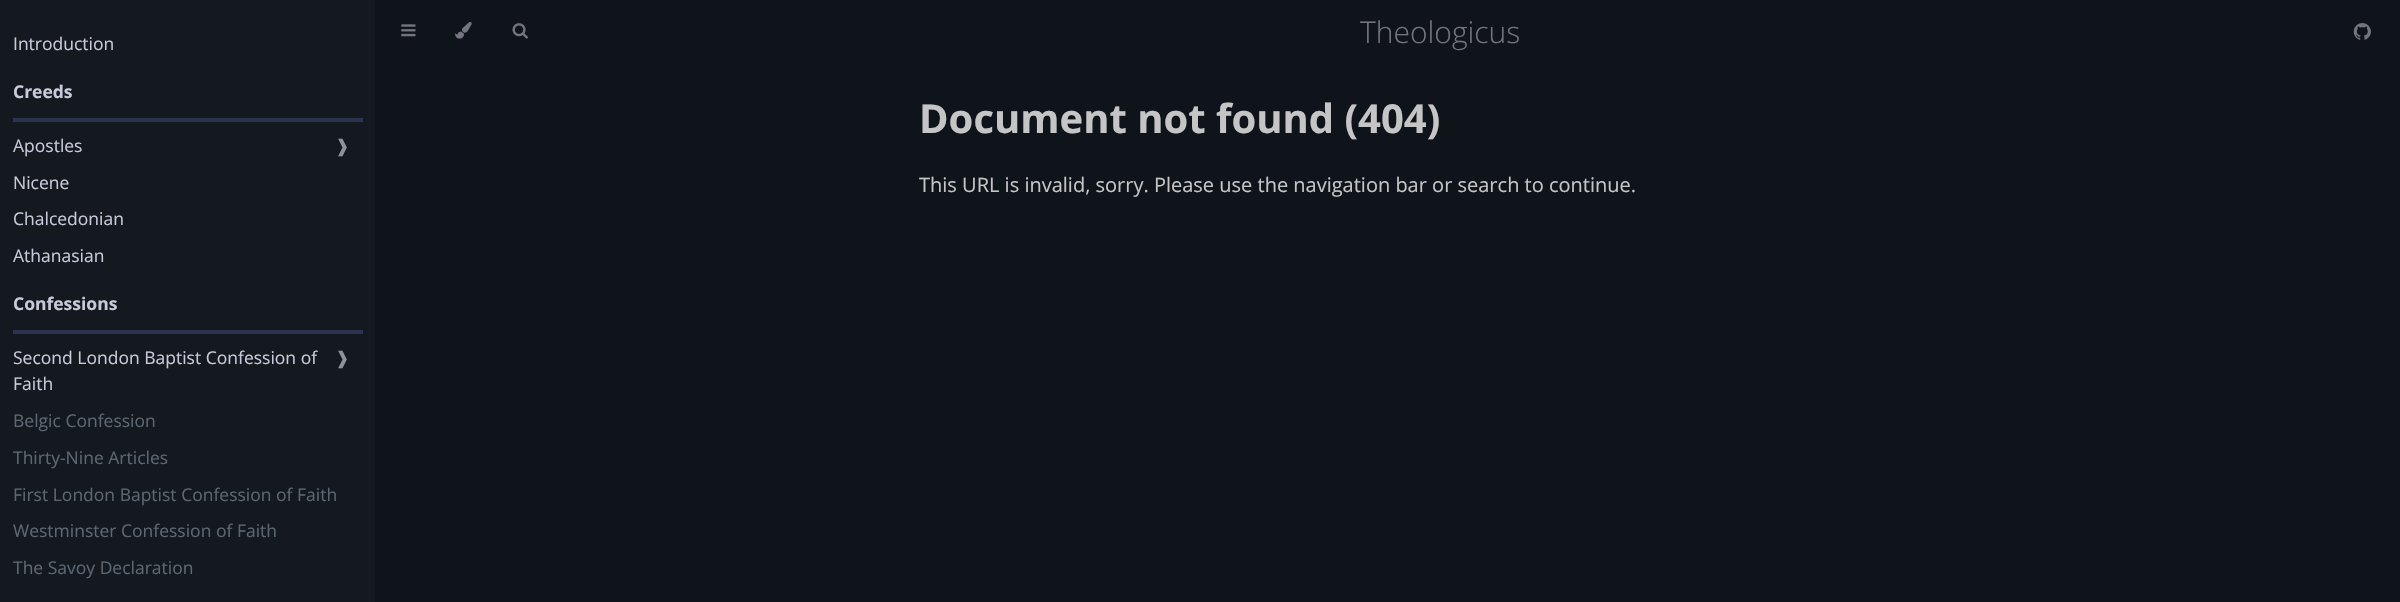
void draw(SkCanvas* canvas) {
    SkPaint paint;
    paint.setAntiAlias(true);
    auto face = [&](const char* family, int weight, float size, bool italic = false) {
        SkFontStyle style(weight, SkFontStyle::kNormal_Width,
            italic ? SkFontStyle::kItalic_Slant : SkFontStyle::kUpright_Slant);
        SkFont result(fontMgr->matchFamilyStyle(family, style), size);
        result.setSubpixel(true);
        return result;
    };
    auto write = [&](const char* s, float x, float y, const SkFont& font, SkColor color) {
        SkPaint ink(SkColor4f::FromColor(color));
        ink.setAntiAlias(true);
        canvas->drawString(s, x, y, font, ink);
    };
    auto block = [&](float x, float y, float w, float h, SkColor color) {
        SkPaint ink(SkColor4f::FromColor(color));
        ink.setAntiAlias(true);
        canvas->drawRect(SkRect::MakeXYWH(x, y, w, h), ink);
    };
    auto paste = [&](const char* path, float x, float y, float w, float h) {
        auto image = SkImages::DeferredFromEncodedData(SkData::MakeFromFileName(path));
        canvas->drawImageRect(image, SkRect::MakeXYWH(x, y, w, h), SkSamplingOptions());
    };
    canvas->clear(SkColorSetRGB(15, 20, 26));
    block(0, 0, 375, 602, SkColorSetRGB(20, 25, 31));
    auto kFont1 = face("Open Sans", 400, 17.5f);
    write("Introduction", 13, 50, kFont1, SkColorSetRGB(200, 201, 219));
    auto kFont2 = face("Open Sans", 700, 17.5f);
    write("Creeds", 13, 98, kFont2, SkColorSetRGB(200, 201, 219));
    block(13, 118, 350, 4, SkColorSetRGB(45, 51, 79));
    write("Apostles", 13, 152, kFont1, SkColorSetRGB(200, 201, 219));
    auto kFont3 = face("DejaVu Sans", 400, 17.5f);
    write("❱", 335, 152, kFont3, SkColorSetRGB(142, 145, 159));
    write("Nicene", 13, 189, kFont1, SkColorSetRGB(200, 201, 219));
    write("Chalcedonian", 13, 225, kFont1, SkColorSetRGB(200, 201, 219));
    write("Athanasian", 13, 262, kFont1, SkColorSetRGB(200, 201, 219));
    write("Confessions", 13, 310, kFont2, SkColorSetRGB(200, 201, 219));
    block(13, 330, 350, 4, SkColorSetRGB(45, 51, 79));
    write("Second London Baptist Confession of", 13, 364, kFont1, SkColorSetRGB(200, 201, 219));
    write("Faith", 13, 390, kFont1, SkColorSetRGB(200, 201, 219));
    write("❱", 335, 364, kFont3, SkColorSetRGB(142, 145, 159));
    write("Belgic Confession", 13, 427, kFont1, SkColorSetRGB(92, 103, 115));
    write("Thirty-Nine Articles", 13, 464, kFont1, SkColorSetRGB(92, 103, 115));
    write("First London Baptist Confession of Faith", 13, 501, kFont1, SkColorSetRGB(92, 103, 115));
    write("Westminster Confession of Faith", 13, 537, kFont1, SkColorSetRGB(92, 103, 115));
    write("The Savoy Declaration", 13, 574, kFont1, SkColorSetRGB(92, 103, 115));
    paste("pic1.png", 401, 24, 15, 13);
    paste("pic2.png", 455, 22, 17, 17);
    paste("pic3.png", 512, 23, 16, 16);
    auto kFont4 = face("Open Sans", 300, 30);
    write("Theologicus", 1360, 43, kFont4, SkColorSetRGB(115, 116, 128));
    paste("pic4.png", 2353, 23, 18, 17);
    auto kFont5 = face("Open Sans", 700, 40);
    write("Document not found (404)", 919, 133, kFont5, SkColorSetRGB(197, 197, 197));
    auto kFont6 = face("Open Sans", 400, 20);
    write("This URL is invalid, sorry. Please use the navigation bar or search to continue.", 919, 192, kFont6, SkColorSetRGB(197, 197, 197));
}
